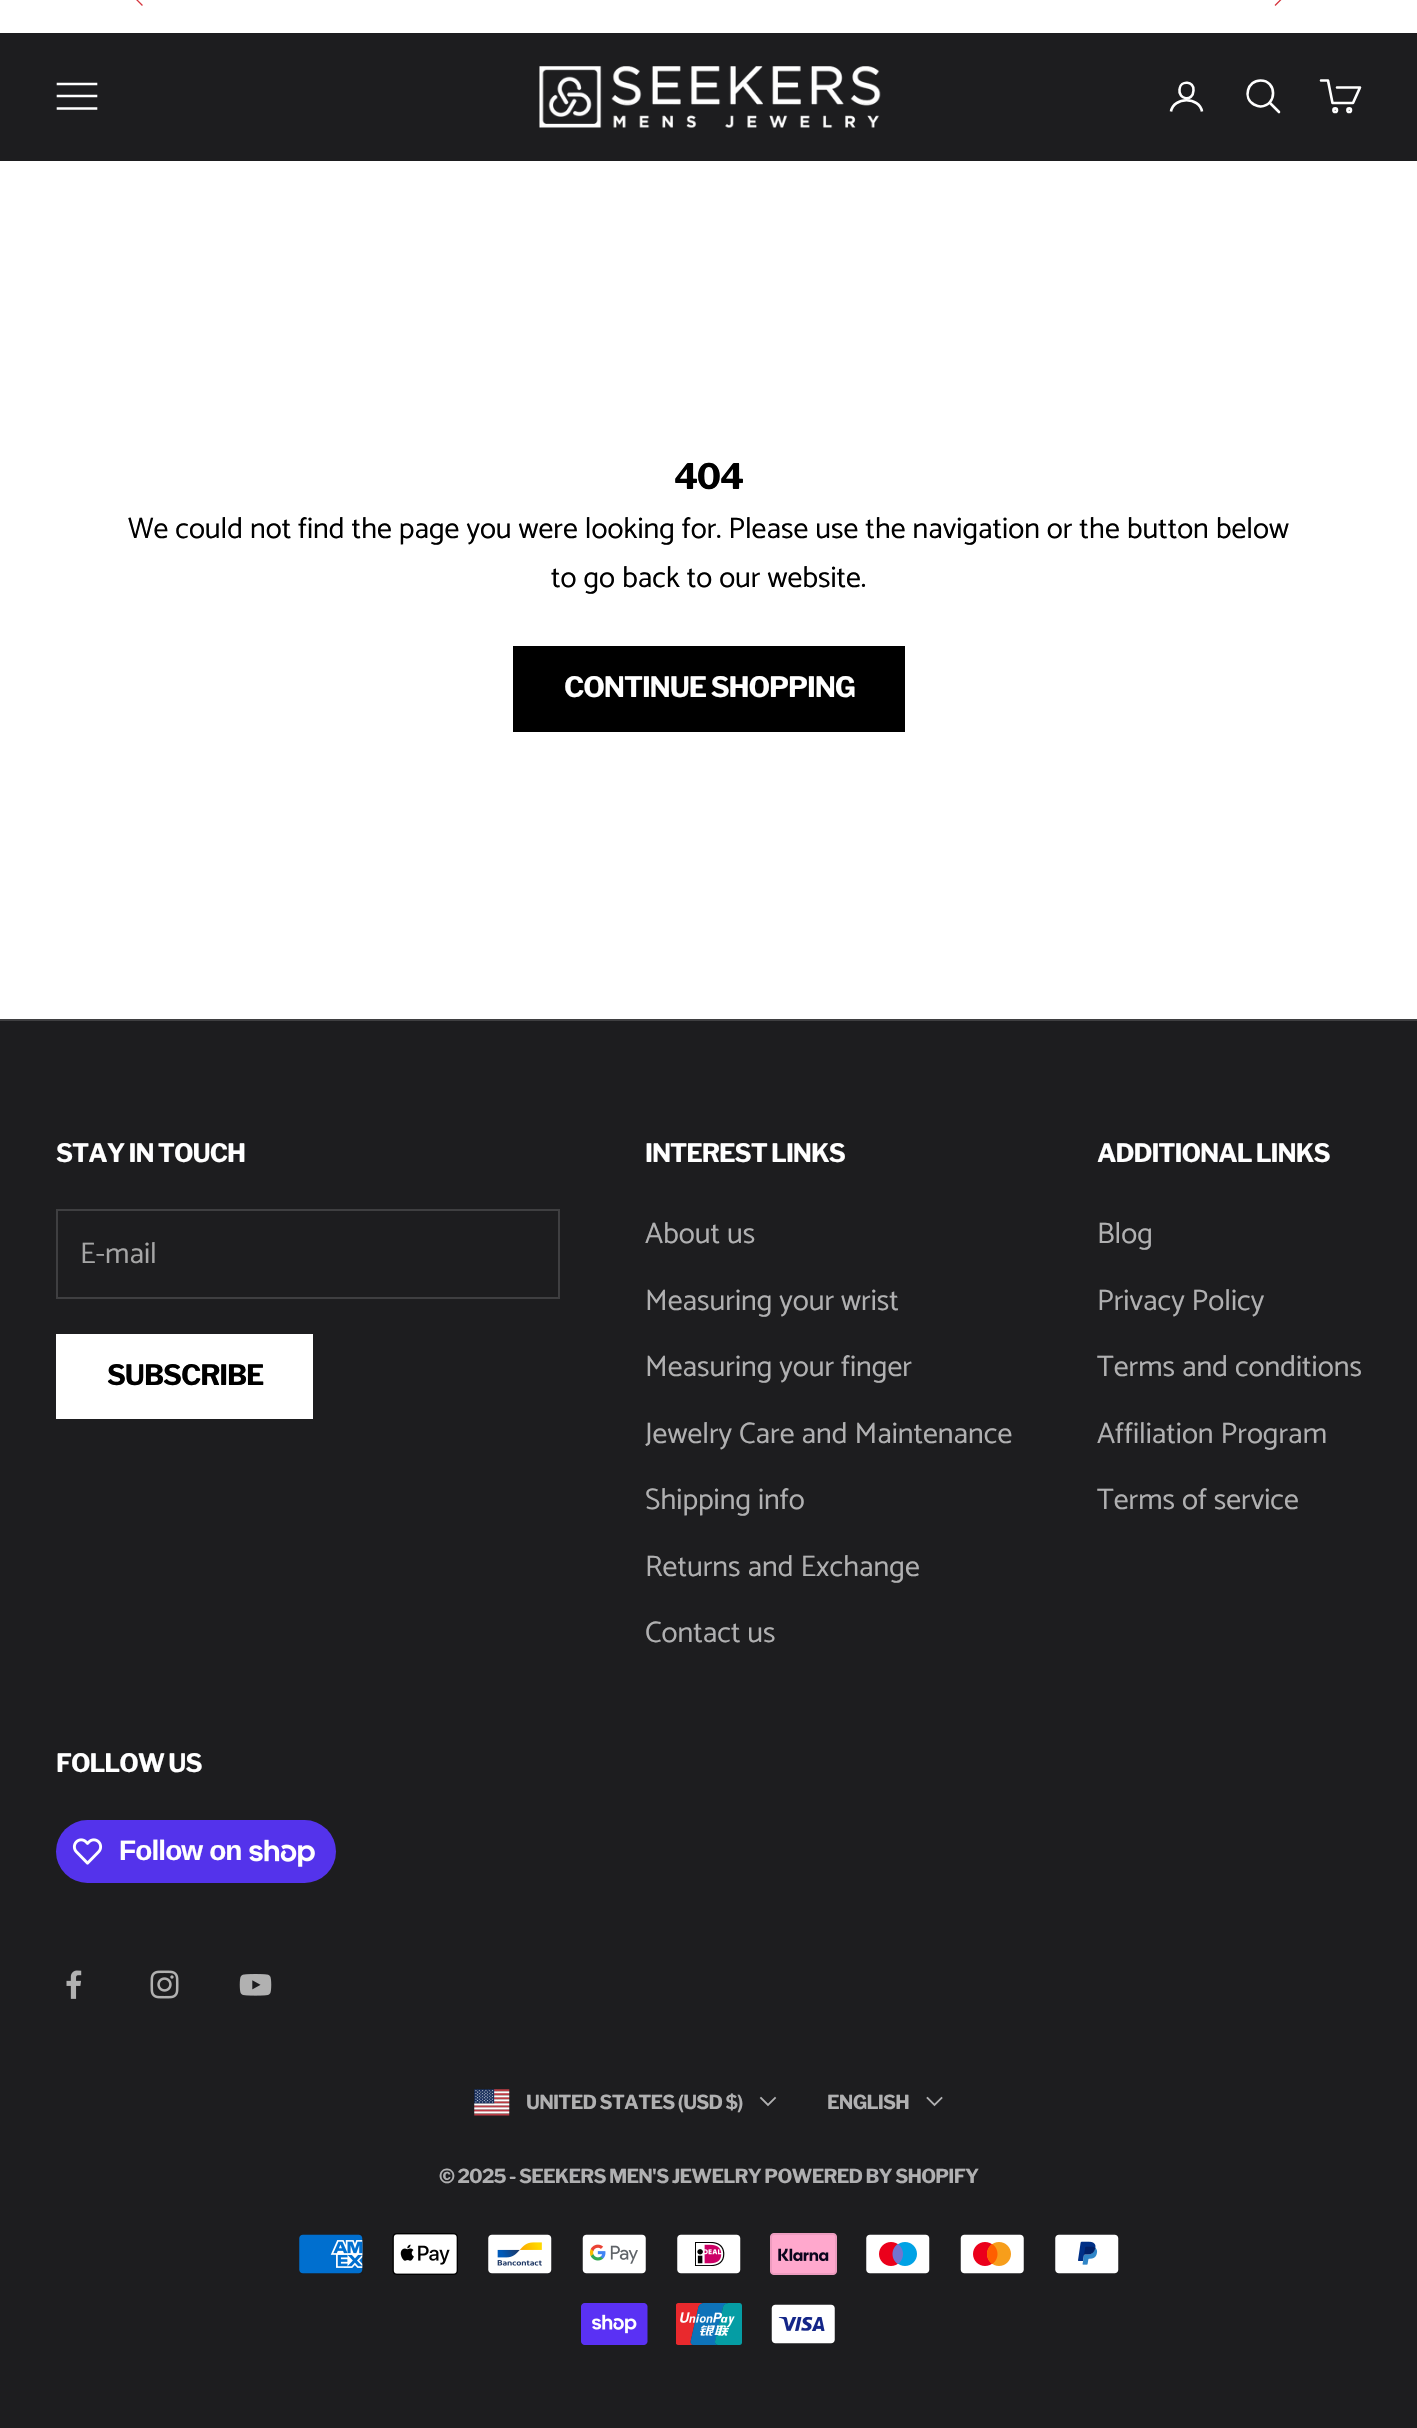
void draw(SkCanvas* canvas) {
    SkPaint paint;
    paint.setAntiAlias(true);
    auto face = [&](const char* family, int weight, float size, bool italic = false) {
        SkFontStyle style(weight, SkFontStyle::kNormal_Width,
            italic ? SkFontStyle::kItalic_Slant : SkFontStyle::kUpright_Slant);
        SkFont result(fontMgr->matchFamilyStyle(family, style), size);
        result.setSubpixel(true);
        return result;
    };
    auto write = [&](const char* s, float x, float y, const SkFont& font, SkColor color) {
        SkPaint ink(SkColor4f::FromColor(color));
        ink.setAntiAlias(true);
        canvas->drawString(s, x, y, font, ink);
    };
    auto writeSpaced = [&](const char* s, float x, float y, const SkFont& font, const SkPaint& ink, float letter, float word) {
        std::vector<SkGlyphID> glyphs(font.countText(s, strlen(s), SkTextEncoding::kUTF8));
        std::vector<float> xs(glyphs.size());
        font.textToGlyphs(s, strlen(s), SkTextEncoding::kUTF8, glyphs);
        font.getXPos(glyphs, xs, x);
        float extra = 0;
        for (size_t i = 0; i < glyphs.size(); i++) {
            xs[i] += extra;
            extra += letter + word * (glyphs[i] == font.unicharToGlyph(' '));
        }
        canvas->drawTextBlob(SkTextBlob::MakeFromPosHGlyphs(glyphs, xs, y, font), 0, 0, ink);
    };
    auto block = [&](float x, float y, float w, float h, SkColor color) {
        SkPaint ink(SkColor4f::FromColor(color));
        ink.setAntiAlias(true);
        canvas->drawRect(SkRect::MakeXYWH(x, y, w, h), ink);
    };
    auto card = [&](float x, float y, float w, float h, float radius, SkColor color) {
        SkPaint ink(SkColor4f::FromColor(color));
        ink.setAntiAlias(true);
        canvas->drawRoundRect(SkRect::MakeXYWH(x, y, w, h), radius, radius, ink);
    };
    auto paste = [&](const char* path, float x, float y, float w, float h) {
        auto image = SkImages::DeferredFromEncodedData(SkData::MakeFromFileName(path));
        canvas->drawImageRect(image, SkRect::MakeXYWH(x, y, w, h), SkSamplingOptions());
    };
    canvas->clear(SkColorSetRGB(29, 29, 31));
    block(0, 0, 1417, 33, SK_ColorWHITE);
    paint.setStyle(SkPaint::kStroke_Style);
    paint.setStrokeWidth(1.3f);
    paint.setStrokeCap(SkPaint::kSquare_Cap);
    paint.setColor(SkColorSetRGB(214, 53, 62));
    canvas->drawPath(SkPathBuilder().moveTo(142, -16).lineTo(131.5f, -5.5f).lineTo(142, 5).detach(), paint);
    canvas->drawPath(SkPathBuilder().moveTo(1275.5f, 5).lineTo(1286, -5.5f).lineTo(1275.5f, -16).detach(), paint);
    paint.setStrokeWidth(2.6f);
    paint.setColor(SK_ColorWHITE);
    canvas->drawPath(SkPathBuilder().moveTo(58, 108.5f).lineTo(96, 108.5f).moveTo(58, 96).lineTo(96, 96).moveTo(58, 84).lineTo(96, 84).detach(), paint);
    paste("pic1.png", 539, 66, 342, 62);
    paint.setStrokeCap(SkPaint::kRound_Cap);
    paint.setStrokeJoin(SkPaint::kRound_Join);
    canvas->drawPath(SkPathBuilder().moveTo(1193.5f, 90.5f).cubicTo(1193, 102, 1178, 100, 1179.5f, 89).cubicTo(1180.5f, 80, 1194.5f, 81, 1193.5f, 90.5f).close().detach(), paint);
    paint.setStrokeCap(SkPaint::kButt_Cap);
    paint.setStrokeJoin(SkPaint::kMiter_Join);
    canvas->drawPath(SkPathBuilder().moveTo(1171, 111.5f).cubicTo(1173.5f, 96.5f, 1199.5f, 96.5f, 1202, 111.5f).detach(), paint);
    canvas->drawPath(SkPathBuilder().moveTo(1260.5f, 80.5f).cubicTo(1247.5f, 80.5f, 1242.5f, 98, 1254, 104.5f).cubicTo(1256, 105.5f, 1258.5f, 106.5f, 1260.5f, 106.5f).cubicTo(1277.5f, 105.5f, 1277, 80.5f, 1260.5f, 80.5f).close().detach(), paint);
    paint.setStrokeCap(SkPaint::kRound_Cap);
    canvas->drawPath(SkPathBuilder().moveTo(1270, 103).lineTo(1279, 112).detach(), paint);
    paint.setStrokeJoin(SkPaint::kRound_Join);
    canvas->drawPath(SkPathBuilder().moveTo(1337, 87.5f).lineTo(1360, 87.5f).lineTo(1353, 103).lineTo(1332.5f, 103).lineTo(1328, 80.5f).lineTo(1321, 80.5f).detach(), paint);
    paint.setStrokeCap(SkPaint::kButt_Cap);
    paint.setStrokeJoin(SkPaint::kMiter_Join);
    canvas->drawCircle(1335.2f, 110.2f, 1.8f, paint);
    canvas->drawCircle(1349.2f, 110.2f, 1.8f, paint);
    block(0, 161, 1417, 858, SK_ColorWHITE);
    auto kFont1 = face("Libre Franklin", 700, 35);
    paint.setStyle(SkPaint::kFill_Style);
    paint.setColor(SK_ColorBLACK);
    writeSpaced("404", 674, 489, kFont1, paint, -1.5f, 0);
    auto kFont2 = face("Catamaran", 400, 29.75f);
    write("We could not find the page you were looking for. Please use the navigation or the button below", 128, 538, kFont2, SK_ColorBLACK);
    write("to go back to our website.", 551, 587, kFont2, SK_ColorBLACK);
    canvas->drawRect(SkRect::MakeXYWH(514, 647, 390, 84), paint);
    paint.setStyle(SkPaint::kStroke_Style);
    paint.setStrokeWidth(2);
    canvas->drawRect(SkRect::MakeXYWH(514, 647, 390, 84), paint);
    auto kFont3 = face("Libre Franklin", 700, 28);
    paint.setStyle(SkPaint::kFill_Style);
    paint.setColor(SK_ColorWHITE);
    writeSpaced("CONTINUE SHOPPING", 564, 697, kFont3, paint, -1.1f, 0);
    block(0, 1019, 1417, 2, SkColorSetRGB(63, 63, 65));
    auto kFont4 = face("Libre Franklin", 700, 25.25f);
    writeSpaced("STAY IN TOUCH", 56, 1162, kFont4, paint, -1, 0);
    paint.setStyle(SkPaint::kStroke_Style);
    paint.setColor(SkColorSetRGB(63, 63, 65));
    canvas->drawRect(SkRect::MakeXYWH(57, 1210, 502, 88), paint);
    write("E-mail", 80, 1263, kFont2, SkColorSetRGB(165, 165, 165));
    paint.setStyle(SkPaint::kFill_Style);
    paint.setColor(SK_ColorWHITE);
    canvas->drawRect(SkRect::MakeXYWH(57, 1335, 255, 83), paint);
    paint.setStyle(SkPaint::kStroke_Style);
    canvas->drawRect(SkRect::MakeXYWH(57, 1335, 255, 83), paint);
    paint.setStyle(SkPaint::kFill_Style);
    paint.setColor(SK_ColorBLACK);
    writeSpaced("SUBSCRIBE", 107, 1385, kFont3, paint, -1.1f, 0);
    paint.setColor(SK_ColorWHITE);
    writeSpaced("INTEREST LINKS", 645, 1162, kFont4, paint, -1, 0);
    write("About us", 645, 1243, kFont2, SkColorSetRGB(176, 176, 177));
    write("Measuring your wrist", 645, 1310, kFont2, SkColorSetRGB(176, 176, 177));
    write("Measuring your finger", 645, 1376, kFont2, SkColorSetRGB(176, 176, 177));
    write("Jewelry Care and Maintenance", 645, 1443, kFont2, SkColorSetRGB(176, 176, 177));
    write("Shipping info", 645, 1509, kFont2, SkColorSetRGB(176, 176, 177));
    write("Returns and Exchange", 645, 1576, kFont2, SkColorSetRGB(176, 176, 177));
    write("Contact us", 645, 1642, kFont2, SkColorSetRGB(176, 176, 177));
    writeSpaced("ADDITIONAL LINKS", 1097, 1162, kFont4, paint, -1, 0);
    write("Blog", 1097, 1243, kFont2, SkColorSetRGB(176, 176, 177));
    write("Privacy Policy", 1097, 1310, kFont2, SkColorSetRGB(176, 176, 177));
    write("Terms and conditions", 1097, 1376, kFont2, SkColorSetRGB(176, 176, 177));
    write("Affiliation Program", 1097, 1443, kFont2, SkColorSetRGB(176, 176, 177));
    write("Terms of service", 1097, 1509, kFont2, SkColorSetRGB(176, 176, 177));
    writeSpaced("FOLLOW US", 56, 1772, kFont4, paint, -1, 0);
    card(56, 1820, 280, 63, 31.5f, SkColorSetRGB(84, 51, 235));
    paste("pic2.png", 72, 1838, 31, 27);
    auto kFont5 = face("Liberation Sans", 700, 28);
    writeSpaced("Follow on", 119, 1860, kFont5, paint, -0.9f, 0);
    paste("pic3.png", 249, 1839, 66, 28);
    paste("pic4.png", 66, 1970, 16, 29);
    paste("pic5.png", 150, 1970, 29, 29);
    paste("pic6.png", 239, 1974, 33, 22);
    paste("pic7.png", 474, 2089, 36, 27);
    auto kFont6 = face("Libre Franklin", 700, 19.25f);
    paint.setColor(SkColorSetRGB(176, 176, 177));
    writeSpaced("UNITED STATES (USD $)", 526, 2109, kFont6, paint, -0.75f, 0);
    paint.setStyle(SkPaint::kStroke_Style);
    paint.setStrokeWidth(1.8f);
    paint.setStrokeCap(SkPaint::kSquare_Cap);
    canvas->drawPath(SkPathBuilder().moveTo(761, 2098).lineTo(768, 2105).lineTo(775, 2098).detach(), paint);
    paint.setStyle(SkPaint::kFill_Style);
    writeSpaced("ENGLISH", 827, 2109, kFont6, paint, -0.75f, 0);
    paint.setStyle(SkPaint::kStroke_Style);
    canvas->drawPath(SkPathBuilder().moveTo(927.5f, 2098).lineTo(934.5f, 2105).lineTo(941.5f, 2098).detach(), paint);
    paint.setStyle(SkPaint::kFill_Style);
    writeSpaced("© 2025 - SEEKERS MEN'S JEWELRY POWERED BY SHOPIFY", 439, 2183, kFont6, paint, -0.75f, 0);
    paste("pic8.png", 299, 2234, 64, 40);
    paste("pic9.png", 392, 2233, 66, 42);
    paste("pic10.png", 488, 2234, 64, 40);
    paste("pic11.png", 582, 2234, 64, 40);
    paste("pic12.png", 677, 2234, 64, 40);
    paste("pic13.png", 770, 2233, 67, 42);
    paste("pic14.png", 866, 2234, 64, 40);
    paste("pic15.png", 960, 2234, 64, 40);
    paste("pic16.png", 1055, 2234, 64, 40);
    paste("pic17.png", 581, 2303, 67, 42);
    paste("pic18.png", 676, 2303, 66, 42);
    paste("pic19.png", 771, 2304, 64, 40);
}
